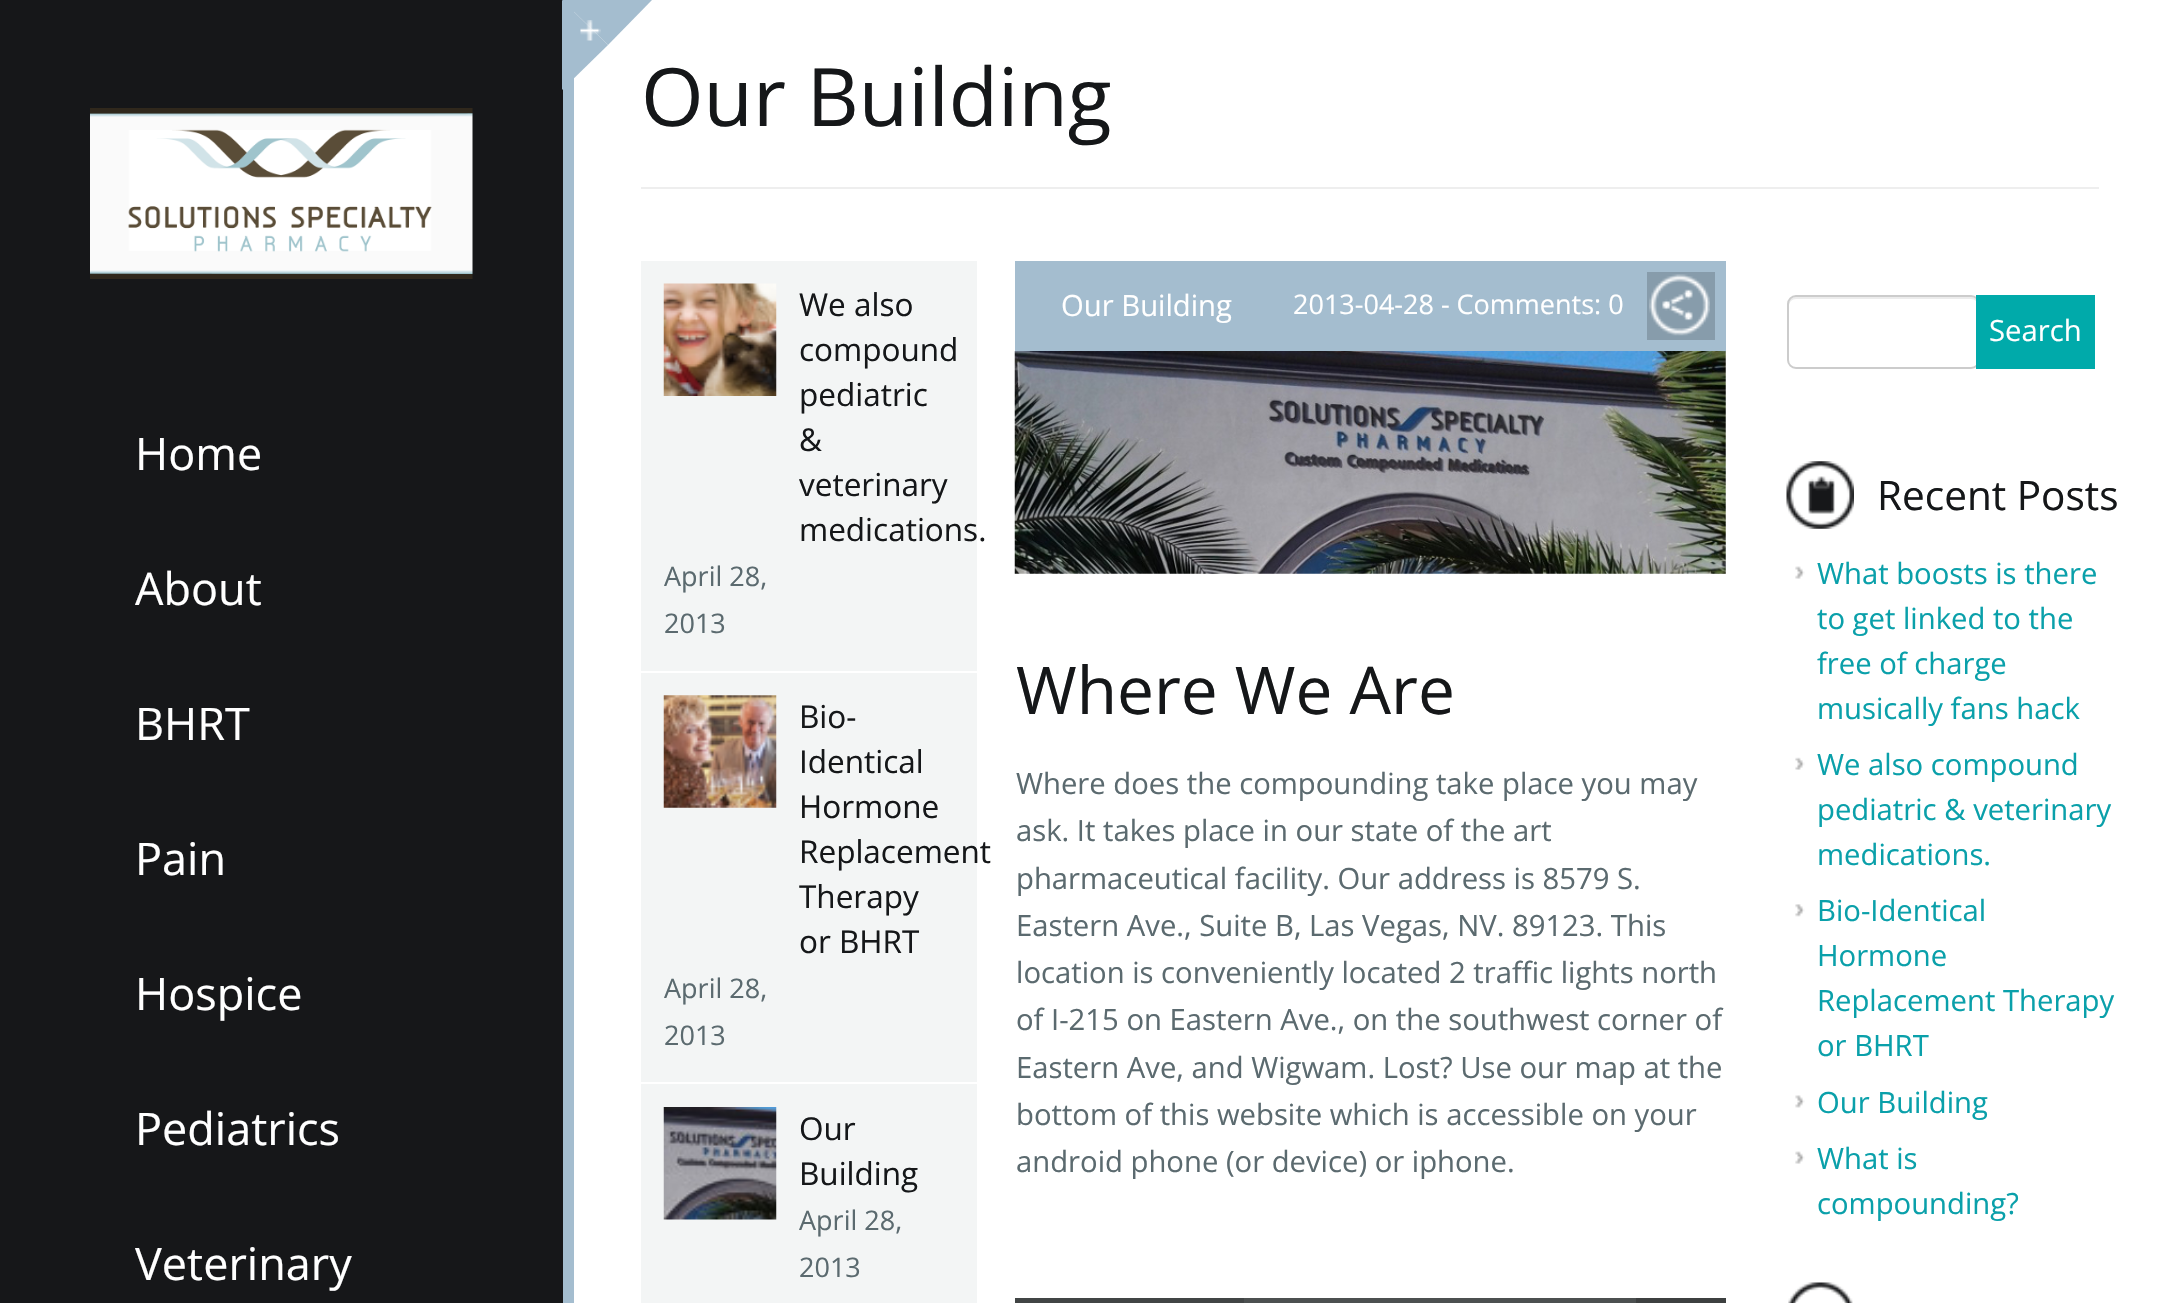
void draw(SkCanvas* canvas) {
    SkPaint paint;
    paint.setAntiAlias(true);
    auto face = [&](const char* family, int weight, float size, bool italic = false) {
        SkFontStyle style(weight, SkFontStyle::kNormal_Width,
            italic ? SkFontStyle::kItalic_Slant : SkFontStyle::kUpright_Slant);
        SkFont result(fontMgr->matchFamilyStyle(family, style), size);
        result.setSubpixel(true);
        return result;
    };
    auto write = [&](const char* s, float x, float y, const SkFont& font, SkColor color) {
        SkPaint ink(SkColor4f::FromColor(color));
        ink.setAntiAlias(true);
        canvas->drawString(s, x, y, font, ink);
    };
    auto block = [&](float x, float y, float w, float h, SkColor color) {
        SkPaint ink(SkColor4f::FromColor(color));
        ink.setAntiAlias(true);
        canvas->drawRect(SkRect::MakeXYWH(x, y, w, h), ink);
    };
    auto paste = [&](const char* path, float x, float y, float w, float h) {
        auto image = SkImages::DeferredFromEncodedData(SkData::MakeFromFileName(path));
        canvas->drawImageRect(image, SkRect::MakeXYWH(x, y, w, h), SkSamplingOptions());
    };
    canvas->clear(SkColorSetRGB(22, 23, 25));
    paste("pic1.png", 90, 108, 383, 171);
    auto kFont1 = face("Open Sans", 400, 45);
    write("Home", 135, 470, kFont1, SK_ColorWHITE);
    write("About", 135, 605, kFont1, SK_ColorWHITE);
    write("BHRT", 135, 740, kFont1, SK_ColorWHITE);
    write("Pain", 135, 875, kFont1, SK_ColorWHITE);
    write("Hospice", 135, 1010, kFont1, SK_ColorWHITE);
    write("Pediatrics", 135, 1145, kFont1, SK_ColorWHITE);
    write("Veterinary", 135, 1280, kFont1, SK_ColorWHITE);
    block(563, 1, 11, 1302, SkColorSetRGB(164, 189, 207));
    block(574, 0, 1591, 1303, SK_ColorWHITE);
    paint.setColor(SkColorSetRGB(164, 189, 207));
    canvas->drawPath(SkPathBuilder().moveTo(562, 0).lineTo(652, 0).lineTo(608, 45).close().detach(), paint);
    canvas->drawPath(SkPathBuilder().moveTo(562, 90).lineTo(562, 0).lineTo(608, 45).close().detach(), paint);
    paste("pic2.png", 580, 20, 21, 21);
    block(641, 187, 1458, 2, SkColorSetRGB(238, 238, 238));
    auto kFont2 = face("Open Sans", 400, 80.5f);
    write("Our Building", 641, 126, kFont2, SkColorSetRGB(21, 23, 25));
    block(641, 261, 336, 410, SkColorSetRGB(243, 245, 245));
    paste("pic3.png", 663, 283, 114, 113);
    auto kFont3 = face("Open Sans", 400, 31.5f);
    write("We also", 799, 316, kFont3, SkColorSetRGB(21, 23, 25));
    write("compound", 799, 361, kFont3, SkColorSetRGB(21, 23, 25));
    write("pediatric", 799, 406, kFont3, SkColorSetRGB(21, 23, 25));
    write("&", 799, 451, kFont3, SkColorSetRGB(21, 23, 25));
    write("veterinary", 799, 496, kFont3, SkColorSetRGB(21, 23, 25));
    write("medications.", 799, 541, kFont3, SkColorSetRGB(21, 23, 25));
    auto kFont4 = face("Open Sans", 400, 27);
    write("April 28,", 664, 586, kFont4, SkColorSetRGB(91, 106, 111));
    write("2013", 664, 633, kFont4, SkColorSetRGB(91, 106, 111));
    block(641, 673, 336, 630, SkColorSetRGB(243, 245, 245));
    block(641, 1082, 336, 2, SK_ColorWHITE);
    paste("pic4.png", 663, 695, 114, 113);
    write("Bio-", 799, 728, kFont3, SkColorSetRGB(21, 23, 25));
    write("Identical", 799, 773, kFont3, SkColorSetRGB(21, 23, 25));
    write("Hormone", 799, 818, kFont3, SkColorSetRGB(21, 23, 25));
    write("Replacement", 799, 863, kFont3, SkColorSetRGB(21, 23, 25));
    write("Therapy", 799, 908, kFont3, SkColorSetRGB(21, 23, 25));
    write("or BHRT", 799, 953, kFont3, SkColorSetRGB(21, 23, 25));
    write("April 28,", 664, 998, kFont4, SkColorSetRGB(91, 106, 111));
    write("2013", 664, 1045, kFont4, SkColorSetRGB(91, 106, 111));
    paste("pic5.png", 663, 1107, 114, 113);
    write("Our", 799, 1140, kFont3, SkColorSetRGB(21, 23, 25));
    write("Building", 799, 1185, kFont3, SkColorSetRGB(21, 23, 25));
    write("April 28,", 799, 1230, kFont4, SkColorSetRGB(91, 106, 111));
    write("2013", 799, 1277, kFont4, SkColorSetRGB(91, 106, 111));
    block(1015, 261, 711, 90, SkColorSetRGB(164, 189, 207));
    auto kFont5 = face("Open Sans", 400, 29.25f);
    write("Our Building", 1061, 316, kFont5, SK_ColorWHITE);
    write("2013-04-28 - Comments: 0", 1293, 314, kFont4, SK_ColorWHITE);
    block(1647, 272, 68, 68, SkColorSetRGB(135, 156, 171));
    paste("pic6.png", 1649, 274, 61, 62);
    paste("pic7.png", 1014, 351, 712, 223);
    auto kFont6 = face("Open Sans", 400, 65.75f);
    write("Where We Are", 1016, 714, kFont6, SkColorSetRGB(21, 23, 25));
    write("Where does the compounding take place you may", 1016, 794, kFont5, SkColorSetRGB(91, 106, 111));
    write("ask. It takes place in our state of the art", 1016, 841, kFont5, SkColorSetRGB(91, 106, 111));
    write("pharmaceutical facility. Our address is 8579 S.", 1016, 889, kFont5, SkColorSetRGB(91, 106, 111));
    write("Eastern Ave., Suite B, Las Vegas, NV. 89123. This", 1016, 936, kFont5, SkColorSetRGB(91, 106, 111));
    write("location is conveniently located 2 traffic lights north", 1016, 983, kFont5, SkColorSetRGB(91, 106, 111));
    write("of I-215 on Eastern Ave., on the southwest corner of", 1016, 1030, kFont5, SkColorSetRGB(91, 106, 111));
    write("Eastern Ave, and Wigwam. Lost? Use our map at the", 1016, 1078, kFont5, SkColorSetRGB(91, 106, 111));
    write("bottom of this website which is accessible on your", 1016, 1125, kFont5, SkColorSetRGB(91, 106, 111));
    write("android phone (or device) or iphone.", 1016, 1172, kFont5, SkColorSetRGB(91, 106, 111));
    block(1244, 1298, 392, 5, SkColorSetRGB(76, 80, 80));
    block(1015, 1298, 229, 5, SkColorSetRGB(65, 69, 69));
    block(1636, 1298, 90, 5, SkColorSetRGB(61, 64, 64));
    paint.setColor(SkColorSetRGB(236, 236, 236));
    canvas->drawPath(SkPathBuilder().moveTo(1796, 299).lineTo(1971, 299).cubicTo(1975, 299, 1978, 302, 1978, 306).lineTo(1978, 304).cubicTo(1978, 300, 1975, 297, 1971, 297).lineTo(1796, 297).cubicTo(1792, 297, 1789, 300, 1789, 304).lineTo(1789, 306).cubicTo(1789, 302, 1792, 299, 1796, 299).close().detach(), paint);
    paint.setStyle(SkPaint::kStroke_Style);
    paint.setStrokeWidth(2);
    paint.setColor(SkColorSetRGB(204, 204, 204));
    canvas->drawRoundRect(SkRect::MakeXYWH(1788, 296, 191, 72), 8, 8, paint);
    block(1976, 295, 119, 74, SkColorSetRGB(0, 170, 170));
    write("Search", 1989, 341, kFont5, SK_ColorWHITE);
    paste("pic8.png", 1786, 461, 68, 68);
    auto kFont7 = face("Open Sans", 400, 40.5f);
    write("Recent Posts", 1877, 510, kFont7, SkColorSetRGB(21, 23, 25));
    paste("pic9.png", 1795, 566, 10, 13);
    write("What boosts is there", 1817, 584, kFont5, SkColorSetRGB(10, 160, 170));
    write("to get linked to the", 1817, 629, kFont5, SkColorSetRGB(10, 160, 170));
    write("free of charge", 1817, 674, kFont5, SkColorSetRGB(10, 160, 170));
    write("musically fans hack", 1817, 719, kFont5, SkColorSetRGB(10, 160, 170));
    paste("pic10.png", 1795, 757, 10, 13);
    write("We also compound", 1817, 775, kFont5, SkColorSetRGB(10, 160, 170));
    write("pediatric & veterinary", 1817, 820, kFont5, SkColorSetRGB(10, 160, 170));
    write("medications.", 1817, 865, kFont5, SkColorSetRGB(10, 160, 170));
    paste("pic11.png", 1795, 904, 10, 13);
    write("Bio-Identical", 1817, 921, kFont5, SkColorSetRGB(10, 160, 170));
    write("Hormone", 1817, 966, kFont5, SkColorSetRGB(10, 160, 170));
    write("Replacement Therapy", 1817, 1011, kFont5, SkColorSetRGB(10, 160, 170));
    write("or BHRT", 1817, 1056, kFont5, SkColorSetRGB(10, 160, 170));
    paste("pic12.png", 1795, 1095, 10, 13);
    write("Our Building", 1817, 1113, kFont5, SkColorSetRGB(10, 160, 170));
    paste("pic9.png", 1795, 1151, 10, 13);
    write("What is", 1817, 1169, kFont5, SkColorSetRGB(10, 160, 170));
    write("compounding?", 1817, 1214, kFont5, SkColorSetRGB(10, 160, 170));
    paste("pic13.png", 1788, 1282, 65, 21);
}
